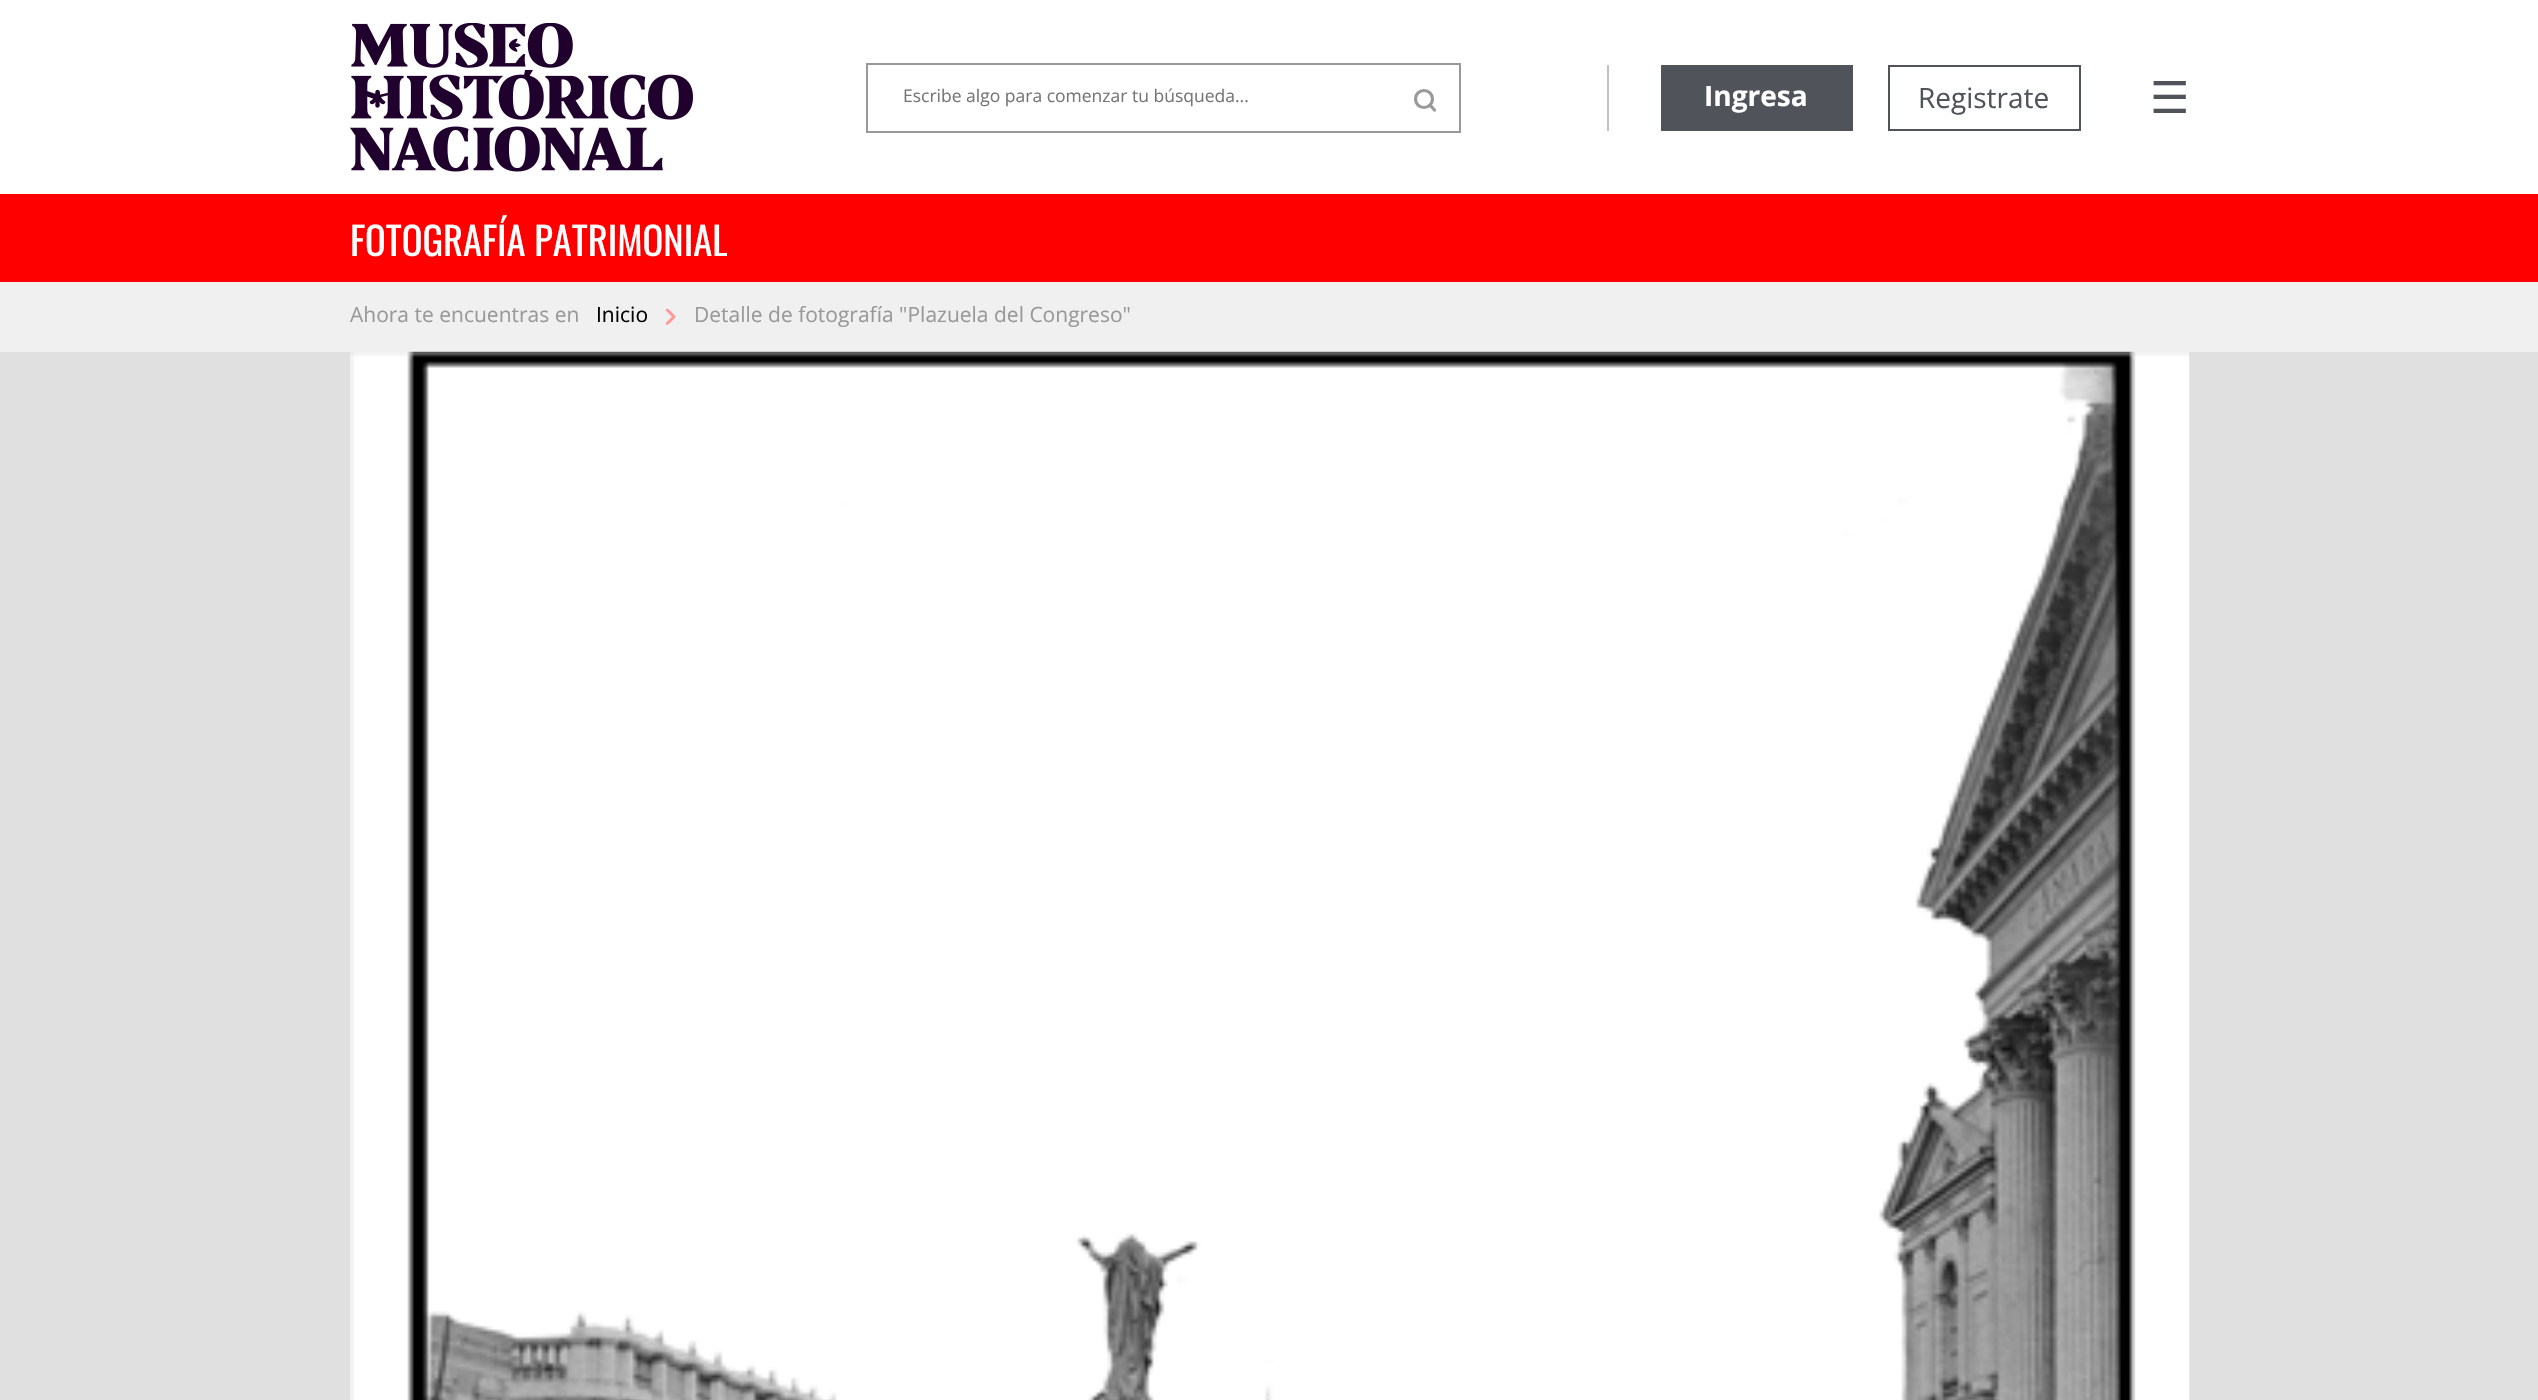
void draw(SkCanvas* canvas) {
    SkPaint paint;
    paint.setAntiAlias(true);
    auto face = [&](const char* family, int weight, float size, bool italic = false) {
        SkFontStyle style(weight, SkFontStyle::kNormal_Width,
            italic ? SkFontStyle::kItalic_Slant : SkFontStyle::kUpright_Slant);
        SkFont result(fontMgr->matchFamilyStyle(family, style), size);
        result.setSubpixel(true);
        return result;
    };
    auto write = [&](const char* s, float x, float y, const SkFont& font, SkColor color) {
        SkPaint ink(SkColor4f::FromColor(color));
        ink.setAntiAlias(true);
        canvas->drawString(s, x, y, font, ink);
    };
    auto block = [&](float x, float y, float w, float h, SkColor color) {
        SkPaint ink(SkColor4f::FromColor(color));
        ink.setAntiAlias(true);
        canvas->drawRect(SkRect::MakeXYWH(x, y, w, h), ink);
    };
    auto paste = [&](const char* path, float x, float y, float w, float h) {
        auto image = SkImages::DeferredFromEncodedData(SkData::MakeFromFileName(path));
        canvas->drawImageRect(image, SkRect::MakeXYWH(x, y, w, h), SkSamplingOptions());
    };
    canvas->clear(SK_ColorWHITE);
    paste("pic1.png", 350, 23, 343, 149);
    paint.setStyle(SkPaint::kStroke_Style);
    paint.setStrokeWidth(2);
    paint.setColor(SkColorSetRGB(153, 153, 153));
    canvas->drawRect(SkRect::MakeXYWH(867, 64, 593, 68), paint);
    auto kFont1 = face("Open Sans", 400, 17.5f);
    write("Escribe algo para comenzar tu búsqueda...", 903, 102, kFont1, SkColorSetRGB(117, 117, 117));
    paint.setStrokeWidth(3.2f);
    canvas->drawCircle(1424, 99, 8.5f, paint);
    paint.setStrokeCap(SkPaint::kRound_Cap);
    paint.setStrokeJoin(SkPaint::kRound_Join);
    canvas->drawPath(SkPathBuilder().moveTo(1434.5f, 110).lineTo(1430, 105).detach(), paint);
    block(1607, 65, 2, 66, SkColorSetRGB(193, 193, 193));
    block(1661, 65, 192, 66, SkColorSetRGB(80, 83, 90));
    auto kFont2 = face("Open Sans", 700, 28);
    write("Ingresa", 1704, 106, kFont2, SK_ColorWHITE);
    paint.setStrokeWidth(2);
    paint.setStrokeCap(SkPaint::kButt_Cap);
    paint.setStrokeJoin(SkPaint::kMiter_Join);
    paint.setColor(SkColorSetRGB(80, 83, 90));
    canvas->drawRect(SkRect::MakeXYWH(1889, 66, 191, 64), paint);
    auto kFont3 = face("Open Sans", 400, 28);
    write("Registrate", 1918, 108, kFont3, SkColorSetRGB(80, 83, 90));
    auto kFont4 = face("DejaVu Sans", 400, 44);
    write("☰", 2150, 113, kFont4, SkColorSetRGB(80, 83, 90));
    block(0, 194, 2538, 88, SkColorSetRGB(255, 0, 0));
    auto kFont5 = face("Oswald", 400, 38.5f);
    write("FOTOGRAFÍA PATRIMONIAL", 350, 256, kFont5, SK_ColorWHITE);
    block(0, 282, 2538, 70, SkColorSetRGB(240, 240, 240));
    auto kFont6 = face("Open Sans", 400, 21);
    write("Ahora te encuentras en", 350, 322, kFont6, SkColorSetRGB(153, 153, 153));
    write("Inicio", 596, 322, kFont6, SK_ColorBLACK);
    paste("pic2.png", 665, 308, 11, 17);
    write("Detalle de fotografía \"Plazuela del Congreso\"", 694, 322, kFont6, SkColorSetRGB(153, 153, 153));
    block(0, 352, 2538, 1048, SkColorSetRGB(224, 224, 224));
    paste("pic3.png", 350, 351, 1840, 1049);
}
